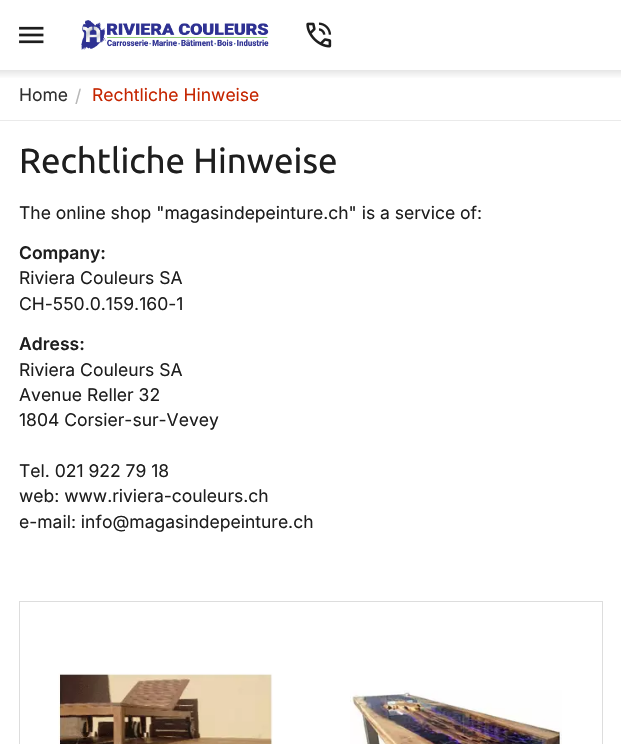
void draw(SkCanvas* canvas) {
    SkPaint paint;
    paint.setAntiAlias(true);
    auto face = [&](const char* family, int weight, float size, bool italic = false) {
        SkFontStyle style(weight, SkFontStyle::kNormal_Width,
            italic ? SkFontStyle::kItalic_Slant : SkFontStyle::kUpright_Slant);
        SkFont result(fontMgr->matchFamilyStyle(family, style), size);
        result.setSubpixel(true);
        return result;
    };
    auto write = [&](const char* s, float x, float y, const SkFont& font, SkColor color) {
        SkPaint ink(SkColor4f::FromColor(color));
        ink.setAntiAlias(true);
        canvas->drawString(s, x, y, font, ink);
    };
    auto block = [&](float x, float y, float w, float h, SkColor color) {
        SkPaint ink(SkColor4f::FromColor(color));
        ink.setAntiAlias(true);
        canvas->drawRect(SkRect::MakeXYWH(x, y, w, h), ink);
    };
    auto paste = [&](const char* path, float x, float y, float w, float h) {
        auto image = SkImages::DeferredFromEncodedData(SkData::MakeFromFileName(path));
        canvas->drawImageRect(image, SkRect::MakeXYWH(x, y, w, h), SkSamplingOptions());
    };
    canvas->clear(SK_ColorWHITE);
    paste("pic1.png", 19, 26, 25, 18);
    paste("pic2.png", 81, 20, 188, 30);
    paste("pic3.png", 306, 22, 26, 26);
    {
        const SkColor colors[] = {SkColorSetRGB(230, 230, 230), SK_ColorWHITE};
        const float stops[] = {0, 1};
        const SkPoint ends[] = {{311, 70}, {311, 79}};
        paint.setShader(SkGradientShader::MakeLinear(ends, colors, stops, 2, SkTileMode::kClamp));
        paint.setAlpha(255);
    }
    canvas->drawRect(SkRect::MakeXYWH(0, 70, 621, 8), paint);
    block(0, 120, 621, 1, SkColorSetRGB(234, 234, 234));
    auto kFont1 = face("Inter", 400, 17.5f);
    write("Home", 19, 101, kFont1, SkColorSetRGB(48, 48, 48));
    write("/", 75, 102, kFont1, SkColorSetRGB(183, 183, 183));
    write("Rechtliche Hinweise", 92, 101, kFont1, SkColorSetRGB(197, 37, 0));
    auto kFont2 = face("Ubuntu", 400, 35);
    write("Rechtliche Hinweise", 19, 173, kFont2, SkColorSetRGB(30, 30, 30));
    write("The online shop \"magasindepeinture.ch\" is a service of:", 19, 219, kFont1, SkColorSetRGB(30, 30, 30));
    auto kFont3 = face("Inter", 600, 17.5f);
    write("Company:", 19, 259, kFont3, SkColorSetRGB(30, 30, 30));
    write("Riviera Couleurs SA", 19, 284, kFont1, SkColorSetRGB(30, 30, 30));
    write("CH-550.0.159.160-1", 19, 310, kFont1, SkColorSetRGB(30, 30, 30));
    write("Adress:", 19, 350, kFont3, SkColorSetRGB(30, 30, 30));
    write("Riviera Couleurs SA", 19, 376, kFont1, SkColorSetRGB(30, 30, 30));
    write("Avenue Reller 32", 19, 401, kFont1, SkColorSetRGB(30, 30, 30));
    write("1804 Corsier-sur-Vevey", 19, 426, kFont1, SkColorSetRGB(30, 30, 30));
    write("Tel. 021 922 79 18", 19, 477, kFont1, SkColorSetRGB(30, 30, 30));
    write("web: www.riviera-couleurs.ch", 19, 502, kFont1, SkColorSetRGB(30, 30, 30));
    write("e-mail: info@magasindepeinture.ch", 19, 528, kFont1, SkColorSetRGB(30, 30, 30));
    paint.setStyle(SkPaint::kStroke_Style);
    paint.setStrokeWidth(1);
    paint.setShader(nullptr);
    paint.setColor(SkColorSetRGB(221, 221, 221));
    canvas->drawRect(SkRect::MakeXYWH(19.5f, 601.5f, 583, 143), paint);
    paste("pic4.png", 58, 673, 215, 71);
    paste("pic5.png", 350, 690, 212, 54);
}
